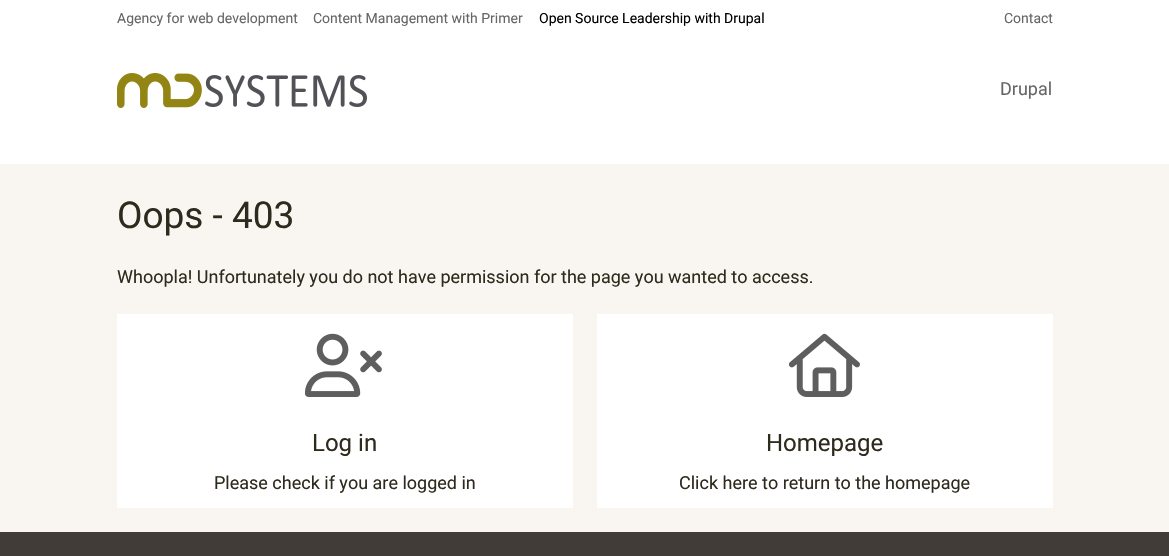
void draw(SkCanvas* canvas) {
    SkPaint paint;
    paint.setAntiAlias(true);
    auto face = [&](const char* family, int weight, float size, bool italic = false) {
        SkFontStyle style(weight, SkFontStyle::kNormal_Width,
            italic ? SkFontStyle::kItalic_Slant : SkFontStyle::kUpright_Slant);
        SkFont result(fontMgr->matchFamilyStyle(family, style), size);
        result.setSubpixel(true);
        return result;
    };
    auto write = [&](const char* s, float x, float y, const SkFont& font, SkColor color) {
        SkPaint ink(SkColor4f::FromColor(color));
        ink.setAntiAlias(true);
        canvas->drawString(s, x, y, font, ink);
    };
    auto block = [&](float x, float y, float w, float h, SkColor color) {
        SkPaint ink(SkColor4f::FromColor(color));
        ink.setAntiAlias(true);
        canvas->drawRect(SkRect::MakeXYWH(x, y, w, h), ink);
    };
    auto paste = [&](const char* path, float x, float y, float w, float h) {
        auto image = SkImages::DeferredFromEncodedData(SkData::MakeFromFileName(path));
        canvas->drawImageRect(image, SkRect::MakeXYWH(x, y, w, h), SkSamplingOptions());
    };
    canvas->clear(SkColorSetRGB(249, 246, 241));
    block(0, 0, 1169, 164, SK_ColorWHITE);
    auto kFont1 = face("Roboto", 400, 14);
    write("Agency for web development", 117, 23, kFont1, SkColorSetRGB(102, 102, 102));
    write("Content Management with Primer", 313, 23, kFont1, SkColorSetRGB(102, 102, 102));
    write("Open Source Leadership with Drupal", 539, 23, kFont1, SK_ColorBLACK);
    write("Contact", 1004, 23, kFont1, SkColorSetRGB(102, 102, 102));
    paste("pic1.png", 117, 73, 250, 35);
    auto kFont2 = face("Roboto", 400, 18);
    write("Drupal", 1000, 95, kFont2, SkColorSetRGB(102, 102, 102));
    auto kFont3 = face("Roboto", 400, 37);
    write("Oops - 403", 117, 228, kFont3, SkColorSetRGB(46, 43, 30));
    write("Whoopla! Unfortunately you do not have permission for the page you wanted to access.", 117, 283, kFont2, SkColorSetRGB(46, 43, 30));
    block(117, 314, 456, 194, SK_ColorWHITE);
    paste("pic2.png", 305, 333, 77, 64);
    auto kFont4 = face("Roboto", 400, 24);
    write("Log in", 312, 451, kFont4, SkColorSetRGB(46, 43, 30));
    write("Please check if you are logged in", 214, 489, kFont2, SkColorSetRGB(46, 43, 30));
    block(597, 314, 456, 194, SK_ColorWHITE);
    paste("pic3.png", 789, 333, 71, 64);
    write("Homepage", 766, 451, kFont4, SkColorSetRGB(46, 43, 30));
    write("Click here to return to the homepage", 679, 489, kFont2, SkColorSetRGB(46, 43, 30));
    block(0, 532, 1169, 24, SkColorSetRGB(66, 60, 56));
}
